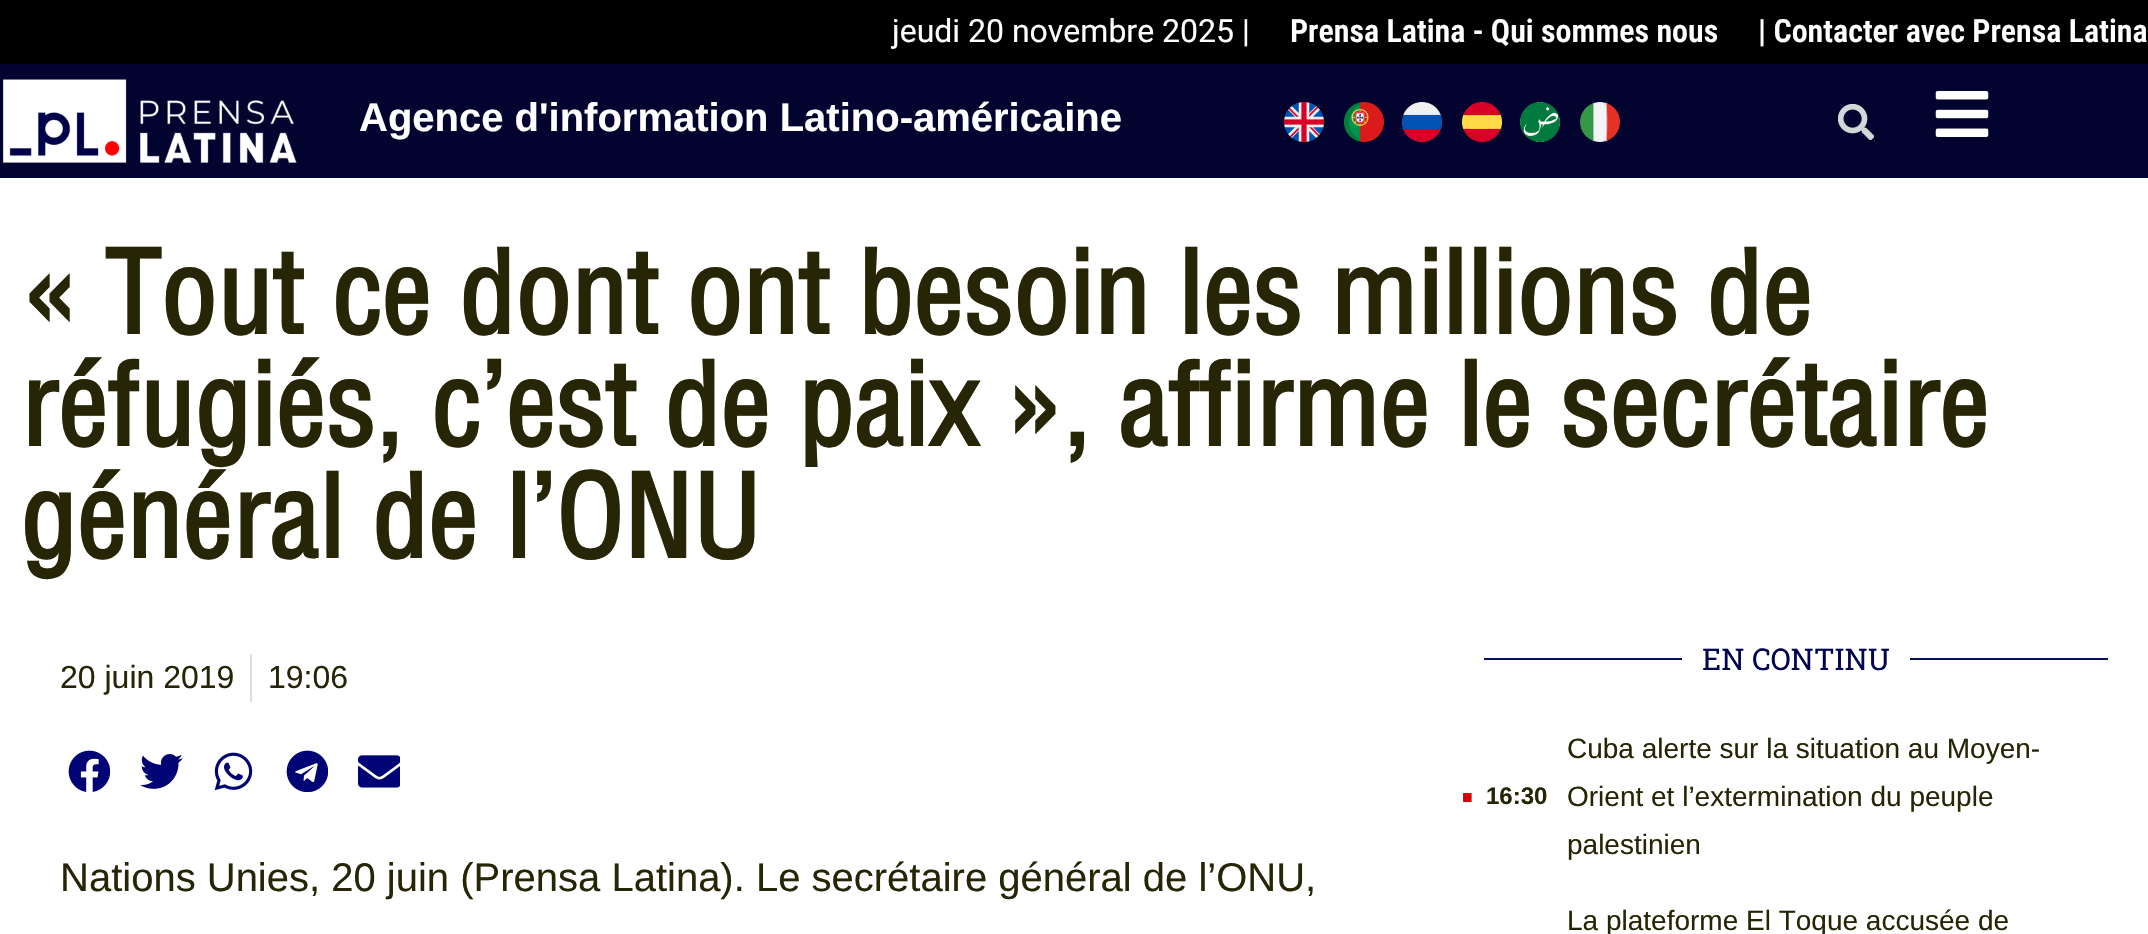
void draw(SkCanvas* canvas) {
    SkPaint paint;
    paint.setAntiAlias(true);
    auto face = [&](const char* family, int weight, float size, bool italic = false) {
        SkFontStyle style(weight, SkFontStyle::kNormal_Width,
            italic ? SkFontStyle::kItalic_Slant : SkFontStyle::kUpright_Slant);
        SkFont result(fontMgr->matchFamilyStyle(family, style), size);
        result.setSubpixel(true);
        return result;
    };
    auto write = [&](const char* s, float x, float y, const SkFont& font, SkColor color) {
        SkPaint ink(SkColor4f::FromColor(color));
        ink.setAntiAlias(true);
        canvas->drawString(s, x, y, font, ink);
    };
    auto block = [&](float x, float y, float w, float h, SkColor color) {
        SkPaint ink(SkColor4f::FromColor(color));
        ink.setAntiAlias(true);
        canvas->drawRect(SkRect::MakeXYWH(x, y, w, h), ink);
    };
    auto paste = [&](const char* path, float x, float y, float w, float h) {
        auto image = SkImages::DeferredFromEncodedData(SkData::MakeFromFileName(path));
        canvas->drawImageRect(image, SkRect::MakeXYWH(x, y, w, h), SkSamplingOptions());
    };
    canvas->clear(SK_ColorWHITE);
    block(0, 0, 2148, 64, SK_ColorBLACK);
    auto kFont1 = face("Roboto", 400, 32);
    write("jeudi 20 novembre 2025 |", 892, 42, kFont1, SK_ColorWHITE);
    auto kFont2 = face("Roboto Condensed", 600, 32);
    write("Prensa Latina - Qui sommes nous", 1290, 42, kFont2, SK_ColorWHITE);
    write("| Contacter avec Prensa Latina", 1758, 42, kFont2, SK_ColorWHITE);
    block(0, 64, 2148, 114, SkColorSetRGB(3, 3, 48));
    paste("pic1.png", 2, 79, 295, 84);
    auto kFont3 = face("Liberation Sans", 700, 40);
    write("Agence d'information Latino-américaine", 359, 131, kFont3, SK_ColorWHITE);
    paste("pic2.png", 1284, 102, 40, 40);
    paste("pic3.png", 1344, 102, 40, 40);
    paste("pic4.png", 1402, 102, 40, 40);
    paste("pic5.png", 1462, 102, 40, 40);
    paste("pic6.png", 1520, 102, 40, 40);
    paste("pic7.png", 1580, 102, 40, 40);
    paste("pic8.png", 1838, 104, 36, 36);
    paste("pic9.png", 1935, 91, 54, 46);
    auto kFont4 = face("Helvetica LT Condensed", 700, 112);
    write("« Tout ce dont ont besoin les millions de", 20, 334, kFont4, SkColorSetRGB(38, 38, 6));
    write("réfugiés, c’est de paix », affirme le secrétaire", 20, 446, kFont4, SkColorSetRGB(38, 38, 6));
    write("général de l’ONU", 20, 558, kFont4, SkColorSetRGB(38, 38, 6));
    auto kFont5 = face("Liberation Sans", 400, 32);
    write("20 juin 2019", 60, 688, kFont5, SkColorSetRGB(38, 38, 6));
    block(250, 654, 2, 48, SkColorSetRGB(221, 221, 221));
    write("19:06", 268, 688, kFont5, SkColorSetRGB(38, 38, 6));
    paste("pic10.png", 68, 750, 42, 42);
    paste("pic11.png", 140, 754, 43, 35);
    paste("pic12.png", 214, 752, 39, 39);
    paste("pic13.png", 286, 750, 42, 42);
    paste("pic14.png", 358, 755, 42, 33);
    auto kFont6 = face("Liberation Sans", 400, 40);
    write("Nations Unies, 20 juin (Prensa Latina). Le secrétaire général de l’ONU,", 60, 891, kFont6, SkColorSetRGB(38, 38, 6));
    block(1484, 658, 198, 2, SkColorSetRGB(7, 17, 91));
    auto kFont7 = face("Roboto Slab", 400, 30);
    write("EN CONTINU", 1702, 670, kFont7, SkColorSetRGB(1, 4, 81));
    block(1910, 658, 198, 2, SkColorSetRGB(7, 17, 91));
    auto kFont8 = face("Liberation Sans", 700, 60);
    write(".", 1459, 802, kFont8, SkColorSetRGB(206, 6, 8));
    auto kFont9 = face("Liberation Sans", 700, 24);
    write("16:30", 1486, 804, kFont9, SkColorSetRGB(38, 38, 6));
    auto kFont10 = face("Liberation Sans", 400, 28);
    write("Cuba alerte sur la situation au Moyen-", 1567, 758, kFont10, SkColorSetRGB(38, 38, 6));
    write("Orient et l’extermination du peuple", 1567, 806, kFont10, SkColorSetRGB(38, 38, 6));
    write("palestinien", 1567, 854, kFont10, SkColorSetRGB(38, 38, 6));
    write("La plateforme El Toque accusée de", 1567, 930, kFont10, SkColorSetRGB(38, 38, 6));
}
